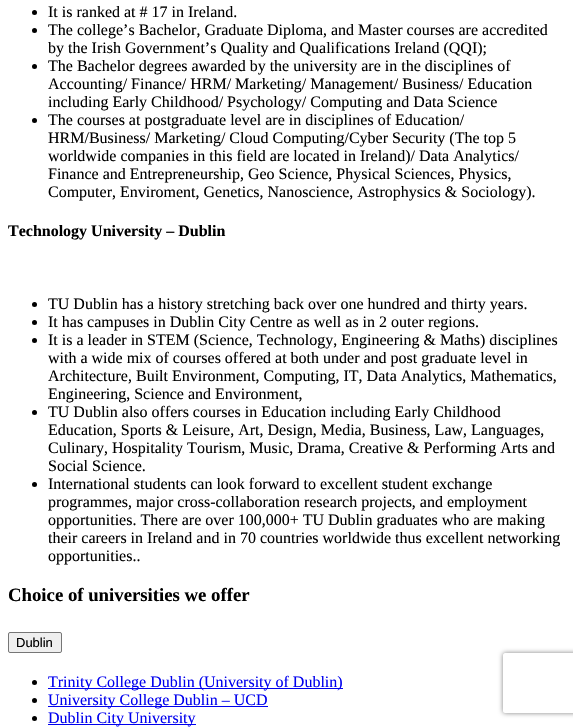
void draw(SkCanvas* canvas) {
    SkPaint paint;
    paint.setAntiAlias(true);
    auto face = [&](const char* family, int weight, float size, bool italic = false) {
        SkFontStyle style(weight, SkFontStyle::kNormal_Width,
            italic ? SkFontStyle::kItalic_Slant : SkFontStyle::kUpright_Slant);
        SkFont result(fontMgr->matchFamilyStyle(family, style), size);
        result.setSubpixel(true);
        return result;
    };
    auto write = [&](const char* s, float x, float y, const SkFont& font, SkColor color) {
        SkPaint ink(SkColor4f::FromColor(color));
        ink.setAntiAlias(true);
        canvas->drawString(s, x, y, font, ink);
    };
    auto block = [&](float x, float y, float w, float h, SkColor color) {
        SkPaint ink(SkColor4f::FromColor(color));
        ink.setAntiAlias(true);
        canvas->drawRect(SkRect::MakeXYWH(x, y, w, h), ink);
    };
    canvas->clear(SK_ColorWHITE);
    paint.setColor(SK_ColorBLACK);
    canvas->drawCircle(34.5f, 12.5f, 2.5f, paint);
    auto kFont1 = face("Liberation Serif", 400, 16);
    write("It is ranked at # 17 in Ireland.", 48, 17, kFont1, SK_ColorBLACK);
    canvas->drawCircle(34.5f, 30.5f, 2.5f, paint);
    write("The college’s Bachelor, Graduate Diploma, and Master courses are accredited", 48, 35, kFont1, SK_ColorBLACK);
    write("by the Irish Government’s Quality and Qualifications Ireland (QQI);", 48, 53, kFont1, SK_ColorBLACK);
    canvas->drawCircle(34.5f, 66.5f, 2.5f, paint);
    write("The Bachelor degrees awarded by the university are in the disciplines of", 48, 71, kFont1, SK_ColorBLACK);
    write("Accounting/ Finance/ HRM/ Marketing/ Management/ Business/ Education", 48, 89, kFont1, SK_ColorBLACK);
    write("including Early Childhood/ Psychology/ Computing and Data Science", 48, 107, kFont1, SK_ColorBLACK);
    canvas->drawCircle(34.5f, 120.5f, 2.5f, paint);
    write("The courses at postgraduate level are in disciplines of Education/", 48, 125, kFont1, SK_ColorBLACK);
    write("HRM/Business/ Marketing/ Cloud Computing/Cyber Security (The top 5", 48, 143, kFont1, SK_ColorBLACK);
    write("worldwide companies in this field are located in Ireland)/ Data Analytics/", 48, 161, kFont1, SK_ColorBLACK);
    write("Finance and Entrepreneurship, Geo Science, Physical Sciences, Physics,", 48, 179, kFont1, SK_ColorBLACK);
    write("Computer, Enviroment, Genetics, Nanoscience, Astrophysics & Sociology).", 48, 197, kFont1, SK_ColorBLACK);
    auto kFont2 = face("Liberation Serif", 700, 16);
    write("Technology University – Dublin", 8, 236, kFont2, SK_ColorBLACK);
    canvas->drawCircle(34.5f, 304.5f, 2.5f, paint);
    write("TU Dublin has a history stretching back over one hundred and thirty years.", 48, 309, kFont1, SK_ColorBLACK);
    canvas->drawCircle(34.5f, 322.5f, 2.5f, paint);
    write("It has campuses in Dublin City Centre as well as in 2 outer regions.", 48, 327, kFont1, SK_ColorBLACK);
    canvas->drawCircle(34.5f, 340.5f, 2.5f, paint);
    write("It is a leader in STEM (Science, Technology, Engineering & Maths) disciplines", 48, 345, kFont1, SK_ColorBLACK);
    write("with a wide mix of courses offered at both under and post graduate level in", 48, 363, kFont1, SK_ColorBLACK);
    write("Architecture, Built Environment, Computing, IT, Data Analytics, Mathematics,", 48, 381, kFont1, SK_ColorBLACK);
    write("Engineering, Science and Environment,", 48, 399, kFont1, SK_ColorBLACK);
    canvas->drawCircle(34.5f, 412.5f, 2.5f, paint);
    write("TU Dublin also offers courses in Education including Early Childhood", 48, 417, kFont1, SK_ColorBLACK);
    write("Education, Sports & Leisure, Art, Design, Media, Business, Law, Languages,", 48, 435, kFont1, SK_ColorBLACK);
    write("Culinary, Hospitality Tourism, Music, Drama, Creative & Performing Arts and", 48, 453, kFont1, SK_ColorBLACK);
    write("Social Science.", 48, 471, kFont1, SK_ColorBLACK);
    canvas->drawCircle(34.5f, 484.5f, 2.5f, paint);
    write("International students can look forward to excellent student exchange", 48, 489, kFont1, SK_ColorBLACK);
    write("programmes, major cross-collaboration research projects, and employment", 48, 507, kFont1, SK_ColorBLACK);
    write("opportunities. There are over 100,000+ TU Dublin graduates who are making", 48, 525, kFont1, SK_ColorBLACK);
    write("their careers in Ireland and in 70 countries worldwide thus excellent networking", 48, 543, kFont1, SK_ColorBLACK);
    write("opportunities..", 48, 561, kFont1, SK_ColorBLACK);
    auto kFont3 = face("Liberation Serif", 700, 18.75f);
    write("Choice of universities we offer", 8, 601, kFont3, SK_ColorBLACK);
    paint.setColor(SkColorSetRGB(239, 239, 239));
    canvas->drawRoundRect(SkRect::MakeXYWH(8.5f, 632.5f, 53, 20), 1.5f, 1.5f, paint);
    paint.setStyle(SkPaint::kStroke_Style);
    paint.setStrokeWidth(1);
    paint.setColor(SkColorSetRGB(118, 118, 118));
    canvas->drawRoundRect(SkRect::MakeXYWH(8.5f, 632.5f, 53, 20), 1.5f, 1.5f, paint);
    auto kFont4 = face("Liberation Sans", 400, 13);
    write("Dublin", 16, 647, kFont4, SK_ColorBLACK);
    paint.setStyle(SkPaint::kFill_Style);
    paint.setColor(SK_ColorBLACK);
    canvas->drawCircle(34.5f, 682.5f, 2.5f, paint);
    block(48, 688, 295, 1, SkColorSetRGB(0, 0, 238));
    write("Trinity College Dublin (University of Dublin)", 48, 687, kFont1, SkColorSetRGB(0, 0, 238));
    canvas->drawCircle(34.5f, 700.5f, 2.5f, paint);
    block(48, 706, 220, 1, SkColorSetRGB(0, 0, 238));
    write("University College Dublin – UCD", 48, 705, kFont1, SkColorSetRGB(0, 0, 238));
    canvas->drawCircle(34.5f, 718.5f, 2.5f, paint);
    block(48, 724, 148, 1, SkColorSetRGB(0, 0, 238));
    write("Dublin City University", 48, 723, kFont1, SkColorSetRGB(0, 0, 238));
    canvas->save();
    canvas->clipPath(SkPathBuilder(SkPathFillType::kEvenOdd).moveTo(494, 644).lineTo(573, 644).lineTo(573, 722).lineTo(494, 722).close().moveTo(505, 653).lineTo(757, 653).cubicTo(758, 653, 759, 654, 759, 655).lineTo(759, 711).cubicTo(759, 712, 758, 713, 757, 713).lineTo(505, 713).cubicTo(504, 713, 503, 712, 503, 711).lineTo(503, 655).cubicTo(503, 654, 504, 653, 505, 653).close().detach(), true);
    paint.setColor(SkColorSetRGB(128, 128, 128));
    paint.setMaskFilter(SkMaskFilter::MakeBlur(kNormal_SkBlurStyle, 2.5f));
    canvas->drawRoundRect(SkRect::MakeXYWH(503, 653, 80, 60), 2, 2, paint);
    paint.setMaskFilter(nullptr);
    canvas->restore();
}
